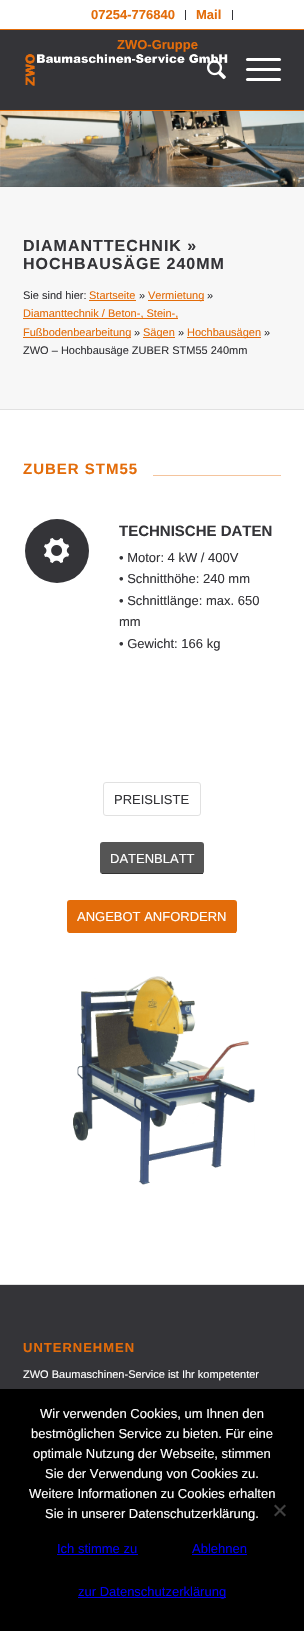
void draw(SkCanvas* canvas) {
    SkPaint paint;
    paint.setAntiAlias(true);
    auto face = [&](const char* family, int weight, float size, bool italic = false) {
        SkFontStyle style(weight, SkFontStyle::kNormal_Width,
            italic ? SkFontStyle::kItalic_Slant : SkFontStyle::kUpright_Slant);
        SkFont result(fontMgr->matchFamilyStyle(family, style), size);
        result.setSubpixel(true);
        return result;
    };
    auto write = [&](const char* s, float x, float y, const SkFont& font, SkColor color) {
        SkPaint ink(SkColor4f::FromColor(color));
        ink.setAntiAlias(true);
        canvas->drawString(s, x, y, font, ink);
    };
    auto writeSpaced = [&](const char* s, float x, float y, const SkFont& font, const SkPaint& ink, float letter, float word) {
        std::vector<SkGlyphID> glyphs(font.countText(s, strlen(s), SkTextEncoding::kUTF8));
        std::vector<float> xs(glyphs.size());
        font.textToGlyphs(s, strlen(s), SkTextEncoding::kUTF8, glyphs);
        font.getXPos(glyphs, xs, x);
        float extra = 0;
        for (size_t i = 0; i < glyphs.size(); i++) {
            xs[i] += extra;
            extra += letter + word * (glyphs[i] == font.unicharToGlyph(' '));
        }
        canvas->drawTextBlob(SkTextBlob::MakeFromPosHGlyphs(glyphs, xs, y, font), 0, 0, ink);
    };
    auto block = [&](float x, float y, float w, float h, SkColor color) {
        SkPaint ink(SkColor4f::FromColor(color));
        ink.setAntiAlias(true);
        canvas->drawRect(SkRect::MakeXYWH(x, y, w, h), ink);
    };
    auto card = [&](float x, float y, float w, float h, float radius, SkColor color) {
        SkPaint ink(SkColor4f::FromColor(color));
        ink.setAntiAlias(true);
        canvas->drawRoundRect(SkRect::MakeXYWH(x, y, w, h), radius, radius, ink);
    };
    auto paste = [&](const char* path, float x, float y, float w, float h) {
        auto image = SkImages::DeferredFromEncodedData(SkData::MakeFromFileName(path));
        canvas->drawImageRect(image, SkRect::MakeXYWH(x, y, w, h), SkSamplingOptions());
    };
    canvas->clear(SkColorSetRGB(52, 52, 56));
    block(0, 0, 304, 29, SK_ColorWHITE);
    block(0, 29, 304, 1, SkColorSetRGB(227, 108, 10));
    block(185, 10, 1, 10, SkColorSetRGB(52, 52, 56));
    auto kFont1 = face("Liberation Sans", 700, 13);
    write("07254-776840", 91, 19, kFont1, SkColorSetRGB(227, 108, 10));
    block(232, 10, 1, 10, SkColorSetRGB(52, 52, 56));
    write("Mail", 196, 19, kFont1, SkColorSetRGB(227, 108, 10));
    write("ZWO-Gruppe", 117, 49, kFont1, SkColorSetRGB(227, 108, 10));
    block(0, 110, 304, 1, SkColorSetRGB(227, 108, 10));
    paste("pic1.png", 25, 54, 203, 32);
    paste("pic2.png", 207, 60, 19, 20);
    card(246, 68, 35, 3, 1.5f, SK_ColorWHITE);
    card(246, 58, 35, 3, 1.5f, SK_ColorWHITE);
    card(246, 78, 35, 3, 1.5f, SK_ColorWHITE);
    paste("pic3.png", 0, 111, 304, 76);
    block(0, 187, 304, 222, SkColorSetRGB(247, 247, 247));
    auto kFont2 = face("Liberation Sans", 700, 16);
    paint.setColor(SkColorSetRGB(52, 52, 56));
    writeSpaced("DIAMANTTECHNIK »", 23, 251, kFont2, paint, 1, 0);
    writeSpaced("HOCHBAUSÄGE 240MM", 23, 269, kFont2, paint, 1, 0);
    auto kFont3 = face("Liberation Sans", 400, 11);
    write("Sie sind hier:", 23, 299, kFont3, SkColorSetRGB(52, 52, 56));
    write("Startseite", 89, 299, kFont3, SkColorSetRGB(227, 108, 10));
    block(89, 300, 47, 1, SkColorSetRGB(227, 108, 10));
    write("»", 139, 299, kFont3, SkColorSetRGB(52, 52, 56));
    block(148, 300, 56, 1, SkColorSetRGB(227, 108, 10));
    write("Vermietung", 148, 299, kFont3, SkColorSetRGB(227, 108, 10));
    write("»", 207, 299, kFont3, SkColorSetRGB(52, 52, 56));
    block(23, 318, 155, 1, SkColorSetRGB(227, 108, 10));
    write("Diamanttechnik / Beton-, Stein-,", 23, 317, kFont3, SkColorSetRGB(227, 108, 10));
    block(23, 337, 108, 1, SkColorSetRGB(227, 108, 10));
    write("Fußbodenbearbeitung", 23, 336, kFont3, SkColorSetRGB(227, 108, 10));
    write("»", 134, 336, kFont3, SkColorSetRGB(52, 52, 56));
    block(143, 337, 32, 1, SkColorSetRGB(227, 108, 10));
    write("Sägen", 143, 336, kFont3, SkColorSetRGB(227, 108, 10));
    write("»", 178, 336, kFont3, SkColorSetRGB(52, 52, 56));
    block(187, 337, 74, 1, SkColorSetRGB(227, 108, 10));
    write("Hochbausägen", 187, 336, kFont3, SkColorSetRGB(227, 108, 10));
    write("»", 264, 336, kFont3, SkColorSetRGB(52, 52, 56));
    write("ZWO – Hochbausäge ZUBER STM55 240mm", 23, 354, kFont3, SkColorSetRGB(52, 52, 56));
    block(0, 410, 304, 874, SK_ColorWHITE);
    block(0, 409, 304, 1, SkColorSetRGB(225, 225, 225));
    auto kFont4 = face("Liberation Sans", 700, 15);
    paint.setColor(SkColorSetRGB(227, 108, 10));
    writeSpaced("ZUBER STM55", 23, 474, kFont4, paint, 1, 0);
    block(153, 475, 128, 1, SkColorSetRGB(244, 196, 157));
    paint.setColor(SkColorSetRGB(52, 52, 56));
    canvas->drawCircle(57, 551, 32, paint);
    paste("pic4.png", 44, 538, 26, 25);
    write("TECHNISCHE DATEN", 119, 536, kFont4, SkColorSetRGB(52, 52, 56));
    auto kFont5 = face("Liberation Sans", 400, 13);
    write("• Motor: 4 kW / 400V", 119, 562, kFont5, SkColorSetRGB(52, 52, 56));
    write("• Schnitthöhe: 240 mm", 119, 583, kFont5, SkColorSetRGB(52, 52, 56));
    write("• Schnittlänge: max. 650", 119, 605, kFont5, SkColorSetRGB(52, 52, 56));
    write("mm", 119, 626, kFont5, SkColorSetRGB(52, 52, 56));
    write("• Gewicht: 166 kg", 119, 648, kFont5, SkColorSetRGB(52, 52, 56));
    paint.setStyle(SkPaint::kStroke_Style);
    paint.setStrokeWidth(1);
    paint.setColor(SkColorSetRGB(225, 225, 225));
    canvas->drawRoundRect(SkRect::MakeXYWH(103.5f, 782.5f, 97, 33), 2.5f, 2.5f, paint);
    write("PREISLISTE", 114, 804, kFont5, SkColorSetRGB(52, 52, 56));
    card(100, 842, 104, 32, 3, SkColorSetRGB(85, 85, 85));
    block(102, 873, 101, 1, SkColorSetRGB(51, 51, 51));
    write("DATENBLATT", 110, 863, kFont5, SK_ColorWHITE);
    card(67, 900, 170, 33, 3, SkColorSetRGB(227, 108, 10));
    block(69, 932, 167, 1, SkColorSetRGB(227, 108, 10));
    write("ANGEBOT ANFORDERN", 77, 921, kFont5, SK_ColorWHITE);
    paste("pic5.png", 73, 976, 182, 209);
    block(0, 1284, 304, 1, SkColorSetRGB(225, 225, 225));
    paint.setStyle(SkPaint::kFill_Style);
    paint.setColor(SkColorSetRGB(227, 108, 10));
    writeSpaced("UNTERNEHMEN", 23, 1352, kFont1, paint, 1, 0);
    write("ZWO Baumaschinen-Service ist Ihr kompetenter", 23, 1378, kFont3, SK_ColorWHITE);
    block(0, 1389, 304, 242, SK_ColorBLACK);
    write("Wir verwenden Cookies, um Ihnen den", 40, 1418, kFont5, SK_ColorWHITE);
    write("bestmöglichen Service zu bieten. Für eine", 31, 1438, kFont5, SK_ColorWHITE);
    write("optimale Nutzung der Webseite, stimmen", 33, 1458, kFont5, SK_ColorWHITE);
    write("Sie der Verwendung von Cookies zu.", 45, 1478, kFont5, SK_ColorWHITE);
    write("Weitere Informationen zu Cookies erhalten", 29, 1498, kFont5, SK_ColorWHITE);
    write("Sie in unserer Datenschutzerklärung.", 45, 1518, kFont5, SK_ColorWHITE);
    paint.setColor(SkColorSetRGB(64, 64, 64));
    canvas->drawPath(SkPathBuilder().moveTo(284.5f, 1504.5f).lineTo(286, 1506).lineTo(275.5f, 1516.5f).lineTo(274, 1515).close().detach(), paint);
    canvas->drawPath(SkPathBuilder().moveTo(274, 1506).lineTo(275.5f, 1504.5f).lineTo(286, 1515).lineTo(284.5f, 1516.5f).close().detach(), paint);
    write("Ich stimme zu", 57, 1553, kFont5, SkColorSetRGB(0, 0, 238));
    block(57, 1554, 81, 1, SkColorSetRGB(0, 0, 238));
    write("Ablehnen", 192, 1553, kFont5, SkColorSetRGB(0, 0, 238));
    block(192, 1554, 55, 1, SkColorSetRGB(0, 0, 238));
    block(78, 1597, 148, 1, SkColorSetRGB(0, 0, 238));
    write("zur Datenschutzerklärung", 78, 1596, kFont5, SkColorSetRGB(0, 0, 238));
}
